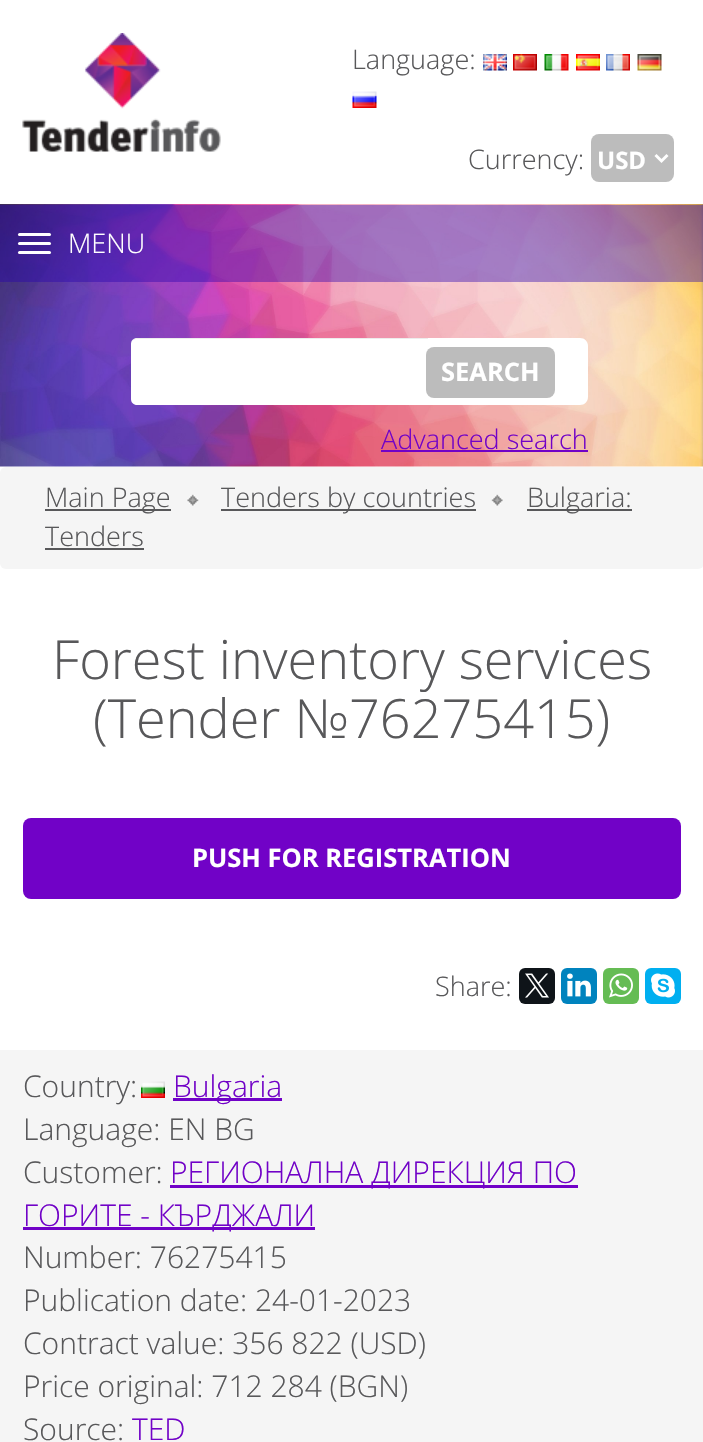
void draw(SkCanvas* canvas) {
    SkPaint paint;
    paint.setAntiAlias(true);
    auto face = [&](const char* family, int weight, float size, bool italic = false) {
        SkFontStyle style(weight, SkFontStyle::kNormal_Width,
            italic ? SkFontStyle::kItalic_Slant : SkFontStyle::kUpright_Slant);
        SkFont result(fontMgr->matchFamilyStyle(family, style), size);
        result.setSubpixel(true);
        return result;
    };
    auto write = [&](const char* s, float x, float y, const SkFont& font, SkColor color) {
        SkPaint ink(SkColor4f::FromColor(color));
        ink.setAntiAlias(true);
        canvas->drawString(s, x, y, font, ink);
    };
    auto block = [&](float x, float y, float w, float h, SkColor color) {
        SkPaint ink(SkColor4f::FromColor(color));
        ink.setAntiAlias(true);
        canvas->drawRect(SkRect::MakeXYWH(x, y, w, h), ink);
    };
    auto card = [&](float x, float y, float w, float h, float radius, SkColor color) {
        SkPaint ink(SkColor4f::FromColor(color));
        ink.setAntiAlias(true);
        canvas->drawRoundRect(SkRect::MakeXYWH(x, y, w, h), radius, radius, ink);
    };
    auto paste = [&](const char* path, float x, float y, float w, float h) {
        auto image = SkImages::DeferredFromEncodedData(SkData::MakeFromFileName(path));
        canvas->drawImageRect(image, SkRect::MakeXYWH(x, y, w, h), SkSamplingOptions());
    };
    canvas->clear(SK_ColorWHITE);
    paste("pic1.png", 22, 33, 199, 119);
    auto kFont1 = face("Open Sans", 300, 27);
    write("Language:", 352, 69, kFont1, SkColorSetRGB(88, 88, 90));
    paste("pic2.png", 483, 54, 24, 17);
    paste("pic3.png", 513, 54, 24, 17);
    paste("pic4.png", 544, 54, 25, 17);
    paste("pic5.png", 576, 54, 24, 17);
    paste("pic6.png", 606, 54, 24, 17);
    paste("pic7.png", 637, 54, 25, 17);
    paste("pic8.png", 352, 91, 25, 17);
    write("Currency:", 468, 169, kFont1, SkColorSetRGB(88, 88, 90));
    card(591, 134, 83, 48, 8, SkColorSetRGB(188, 188, 188));
    paint.setStyle(SkPaint::kStroke_Style);
    paint.setStrokeWidth(3);
    paint.setColor(SK_ColorWHITE);
    canvas->drawPath(SkPathBuilder().moveTo(655.5f, 155).lineTo(661.5f, 161).lineTo(667.5f, 155).detach(), paint);
    auto kFont2 = face("Open Sans", 700, 24);
    write("USD", 597, 169, kFont2, SK_ColorWHITE);
    paste("pic9.png", 0, 204, 703, 263);
    block(0, 205, 703, 77, SkColorSetARGB(102, 37, 0, 175));
    card(18, 233, 33, 3, 1.5f, SK_ColorWHITE);
    card(18, 242, 33, 3, 1.5f, SK_ColorWHITE);
    card(18, 251, 33, 3, 1.5f, SK_ColorWHITE);
    write("MENU", 68, 253, kFont1, SK_ColorWHITE);
    paint.setStyle(SkPaint::kFill_Style);
    canvas->drawPath(SkPathBuilder().moveTo(137, 338).lineTo(428, 338).lineTo(428, 405).lineTo(137, 405).cubicTo(133.5f, 405, 131, 402.5f, 131, 399).lineTo(131, 344).cubicTo(131, 340.5f, 133.5f, 338, 137, 338).close().detach(), paint);
    paint.setColor(SkColorSetARGB(18, 0, 0, 0));
    canvas->drawPath(SkPathBuilder().moveTo(136, 339).lineTo(428, 339).lineTo(428, 338).lineTo(137, 338).cubicTo(135, 338, 133, 339, 132, 341).cubicTo(133, 340, 135, 339, 136, 339).close().detach(), paint);
    paint.setColor(SK_ColorWHITE);
    canvas->drawPath(SkPathBuilder().moveTo(428, 338).lineTo(580, 338).cubicTo(584.5f, 338, 588, 341.5f, 588, 346).lineTo(588, 397).cubicTo(588, 401.5f, 584.5f, 405, 580, 405).lineTo(428, 405).close().detach(), paint);
    card(426, 347, 129, 51, 8, SkColorSetRGB(188, 188, 188));
    auto kFont3 = face("Open Sans", 700, 25.5f);
    write("SEARCH", 441, 381, kFont3, SK_ColorWHITE);
    write("Advanced search", 381, 449, kFont1, SkColorSetRGB(113, 2, 199));
    block(381, 450, 207, 2, SkColorSetRGB(113, 2, 199));
    card(0, 467, 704, 102, 6, SkColorSetRGB(245, 245, 245));
    block(45, 509, 126, 2, SkColorSetRGB(88, 88, 90));
    write("Main Page", 45, 507, kFont1, SkColorSetRGB(88, 88, 90));
    paste("pic10.png", 187, 494, 12, 12);
    block(221, 509, 255, 2, SkColorSetRGB(88, 88, 90));
    write("Tenders by countries", 221, 507, kFont1, SkColorSetRGB(88, 88, 90));
    paste("pic11.png", 491, 494, 12, 12);
    block(527, 509, 105, 2, SkColorSetRGB(88, 88, 90));
    write("Bulgaria:", 527, 507, kFont1, SkColorSetRGB(88, 88, 90));
    write("Tenders", 45, 546, kFont1, SkColorSetRGB(88, 88, 90));
    block(45, 548, 99, 2, SkColorSetRGB(88, 88, 90));
    auto kFont4 = face("Open Sans", 300, 54);
    write("Forest inventory services", 52, 679, kFont4, SkColorSetRGB(88, 88, 90));
    write("(Tender №76275415)", 93, 738, kFont4, SkColorSetRGB(88, 88, 90));
    card(23, 818, 658, 81, 8, SkColorSetRGB(113, 2, 199));
    write("PUSH FOR REGISTRATION", 192, 867, kFont3, SK_ColorWHITE);
    write("Share:", 435, 996, kFont1, SkColorSetRGB(88, 88, 90));
    card(519, 968, 36, 36, 6, SkColorSetRGB(15, 20, 25));
    paste("pic12.png", 525, 973, 24, 25);
    card(561, 968, 36, 36, 6, SkColorSetRGB(0, 131, 190));
    paste("pic13.png", 567, 973, 24, 24);
    card(603, 968, 36, 36, 6, SkColorSetRGB(101, 188, 84));
    paste("pic14.png", 609, 973, 24, 25);
    card(645, 968, 36, 36, 6, SkColorSetRGB(0, 175, 240));
    paste("pic15.png", 651, 973, 24, 25);
    block(0, 1050, 703, 392, SkColorSetRGB(245, 245, 245));
    auto kFont5 = face("Open Sans", 300, 30);
    write("Country:", 23, 1097, kFont5, SkColorSetRGB(88, 88, 90));
    paste("pic16.png", 141, 1081, 24, 17);
    block(173, 1098, 109, 3, SkColorSetRGB(113, 2, 199));
    write("Bulgaria", 173, 1097, kFont5, SkColorSetRGB(113, 2, 199));
    write("Language: EN BG", 23, 1140, kFont5, SkColorSetRGB(88, 88, 90));
    write("Customer:", 23, 1183, kFont5, SkColorSetRGB(88, 88, 90));
    block(170, 1185, 408, 3, SkColorSetRGB(113, 2, 199));
    write("РЕГИОНАЛНА ДИРЕКЦИЯ ПО", 170, 1183, kFont5, SkColorSetRGB(113, 2, 199));
    block(23, 1227, 292, 3, SkColorSetRGB(113, 2, 199));
    write("ГОРИТЕ - КЪРДЖАЛИ", 23, 1226, kFont5, SkColorSetRGB(113, 2, 199));
    write("Number: 76275415", 23, 1268, kFont5, SkColorSetRGB(88, 88, 90));
    write("Publication date: 24-01-2023", 23, 1311, kFont5, SkColorSetRGB(88, 88, 90));
    write("Contract value: 356 822 (USD)", 23, 1354, kFont5, SkColorSetRGB(88, 88, 90));
    write("Price original: 712 284 (BGN)", 23, 1397, kFont5, SkColorSetRGB(88, 88, 90));
    write("Source:", 23, 1440, kFont5, SkColorSetRGB(88, 88, 90));
    write("TED", 132, 1440, kFont5, SkColorSetRGB(113, 2, 199));
}
